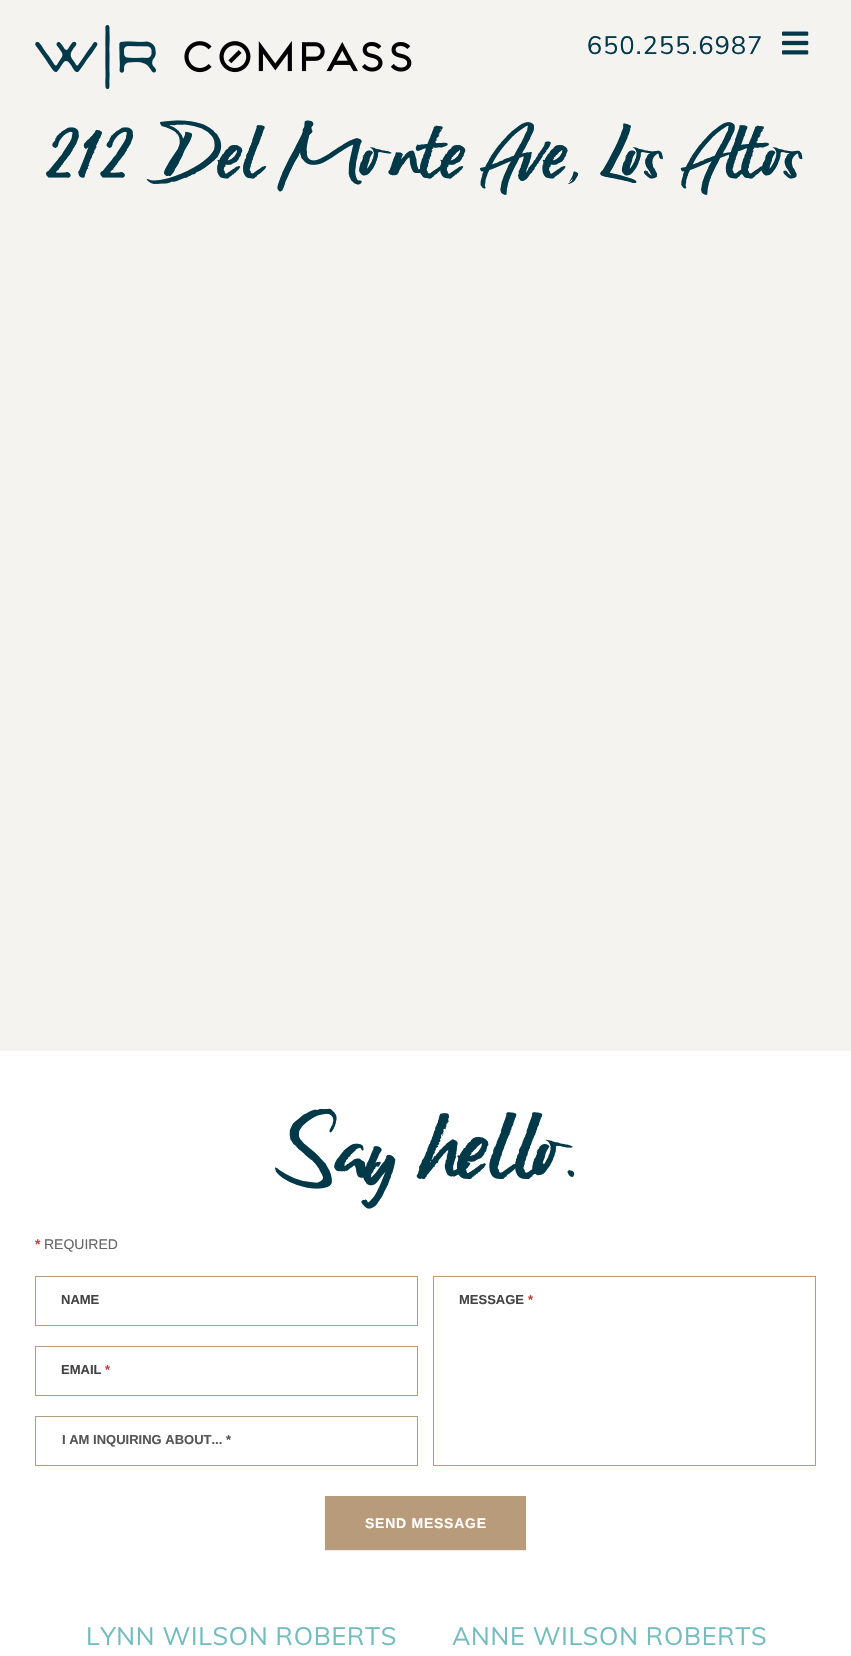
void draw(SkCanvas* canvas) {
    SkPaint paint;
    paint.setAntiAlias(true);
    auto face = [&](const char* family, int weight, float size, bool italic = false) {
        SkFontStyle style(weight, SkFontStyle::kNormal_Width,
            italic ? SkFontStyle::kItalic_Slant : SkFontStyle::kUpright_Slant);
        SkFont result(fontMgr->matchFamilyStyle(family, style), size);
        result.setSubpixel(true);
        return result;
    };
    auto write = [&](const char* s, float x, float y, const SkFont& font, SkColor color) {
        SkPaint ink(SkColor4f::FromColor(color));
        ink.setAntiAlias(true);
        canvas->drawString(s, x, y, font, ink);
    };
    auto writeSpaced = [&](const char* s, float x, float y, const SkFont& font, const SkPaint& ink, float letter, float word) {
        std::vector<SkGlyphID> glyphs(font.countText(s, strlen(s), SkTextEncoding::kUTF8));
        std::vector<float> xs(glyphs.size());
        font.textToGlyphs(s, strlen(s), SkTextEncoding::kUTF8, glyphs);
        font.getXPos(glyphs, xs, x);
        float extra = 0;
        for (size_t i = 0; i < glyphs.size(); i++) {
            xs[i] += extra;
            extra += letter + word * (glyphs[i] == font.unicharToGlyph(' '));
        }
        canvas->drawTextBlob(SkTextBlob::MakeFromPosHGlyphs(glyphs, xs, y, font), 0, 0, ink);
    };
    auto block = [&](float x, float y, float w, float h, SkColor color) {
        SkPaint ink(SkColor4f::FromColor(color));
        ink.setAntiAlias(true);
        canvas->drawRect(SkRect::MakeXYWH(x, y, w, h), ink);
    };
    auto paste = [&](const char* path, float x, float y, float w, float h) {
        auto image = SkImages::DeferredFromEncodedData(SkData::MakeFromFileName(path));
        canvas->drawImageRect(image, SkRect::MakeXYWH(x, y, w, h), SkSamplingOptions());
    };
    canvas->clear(SkColorSetRGB(245, 243, 240));
    paste("pic1.png", 35, 25, 377, 64);
    auto kFont1 = face("Muli", 400, 25);
    paint.setColor(SkColorSetRGB(1, 57, 73));
    writeSpaced("650.255.6987", 587, 54, kFont1, paint, 1.25f, 0);
    paste("pic2.png", 782, 31, 27, 24);
    auto kFont2 = face("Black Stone", 900, 100);
    write("212 Del Monte Ave, Los Altos", 46, 185, kFont2, SkColorSetRGB(1, 57, 73));
    block(0, 1051, 851, 605, SK_ColorWHITE);
    auto kFont3 = face("Black Stone", 900, 125);
    write("Say hello.", 275, 1187, kFont3, SkColorSetRGB(1, 57, 73));
    auto kFont4 = face("Liberation Sans", 700, 14);
    write("*", 35, 1249, kFont4, SkColorSetRGB(185, 74, 72));
    auto kFont5 = face("Liberation Sans", 400, 14);
    write("REQUIRED", 44, 1249, kFont5, SkColorSetRGB(102, 102, 102));
    paint.setStyle(SkPaint::kStroke_Style);
    paint.setStrokeWidth(1);
    paint.setColor(SkColorSetRGB(184, 155, 122));
    canvas->drawRect(SkRect::MakeXYWH(35.5f, 1276.5f, 382, 49), paint);
    auto kFont6 = face("Liberation Sans", 700, 13);
    write("NAME", 61, 1304, kFont6, SkColorSetRGB(68, 68, 68));
    canvas->drawRect(SkRect::MakeXYWH(35.5f, 1346.5f, 382, 49), paint);
    write("EMAIL", 61, 1374, kFont6, SkColorSetRGB(68, 68, 68));
    write("*", 105, 1374, kFont6, SkColorSetRGB(185, 74, 72));
    canvas->drawRect(SkRect::MakeXYWH(35.5f, 1416.5f, 382, 49), paint);
    write("I AM INQUIRING ABOUT... *", 62, 1444, kFont6, SkColorSetRGB(85, 85, 85));
    canvas->drawRect(SkRect::MakeXYWH(433.5f, 1276.5f, 382, 189), paint);
    write("MESSAGE", 459, 1304, kFont6, SkColorSetRGB(68, 68, 68));
    write("*", 528, 1304, kFont6, SkColorSetRGB(185, 74, 72));
    paint.setStyle(SkPaint::kFill_Style);
    paint.setColor(SkColorSetRGB(238, 238, 238));
    paint.setMaskFilter(SkMaskFilter::MakeBlur(kNormal_SkBlurStyle, 0.5f));
    canvas->drawRect(SkRect::MakeXYWH(325, 1497, 201, 54), paint);
    paint.setMaskFilter(nullptr);
    block(325, 1496, 201, 54, SkColorSetRGB(184, 155, 122));
    paint.setColor(SK_ColorWHITE);
    writeSpaced("SEND MESSAGE", 365, 1528, kFont4, paint, 0.75f, 0);
    paint.setColor(SkColorSetRGB(113, 188, 191));
    writeSpaced("LYNN WILSON ROBERTS", 86, 1645, kFont1, paint, 0.75f, 0);
    writeSpaced("ANNE WILSON ROBERTS", 452, 1645, kFont1, paint, 0.75f, 0);
}
